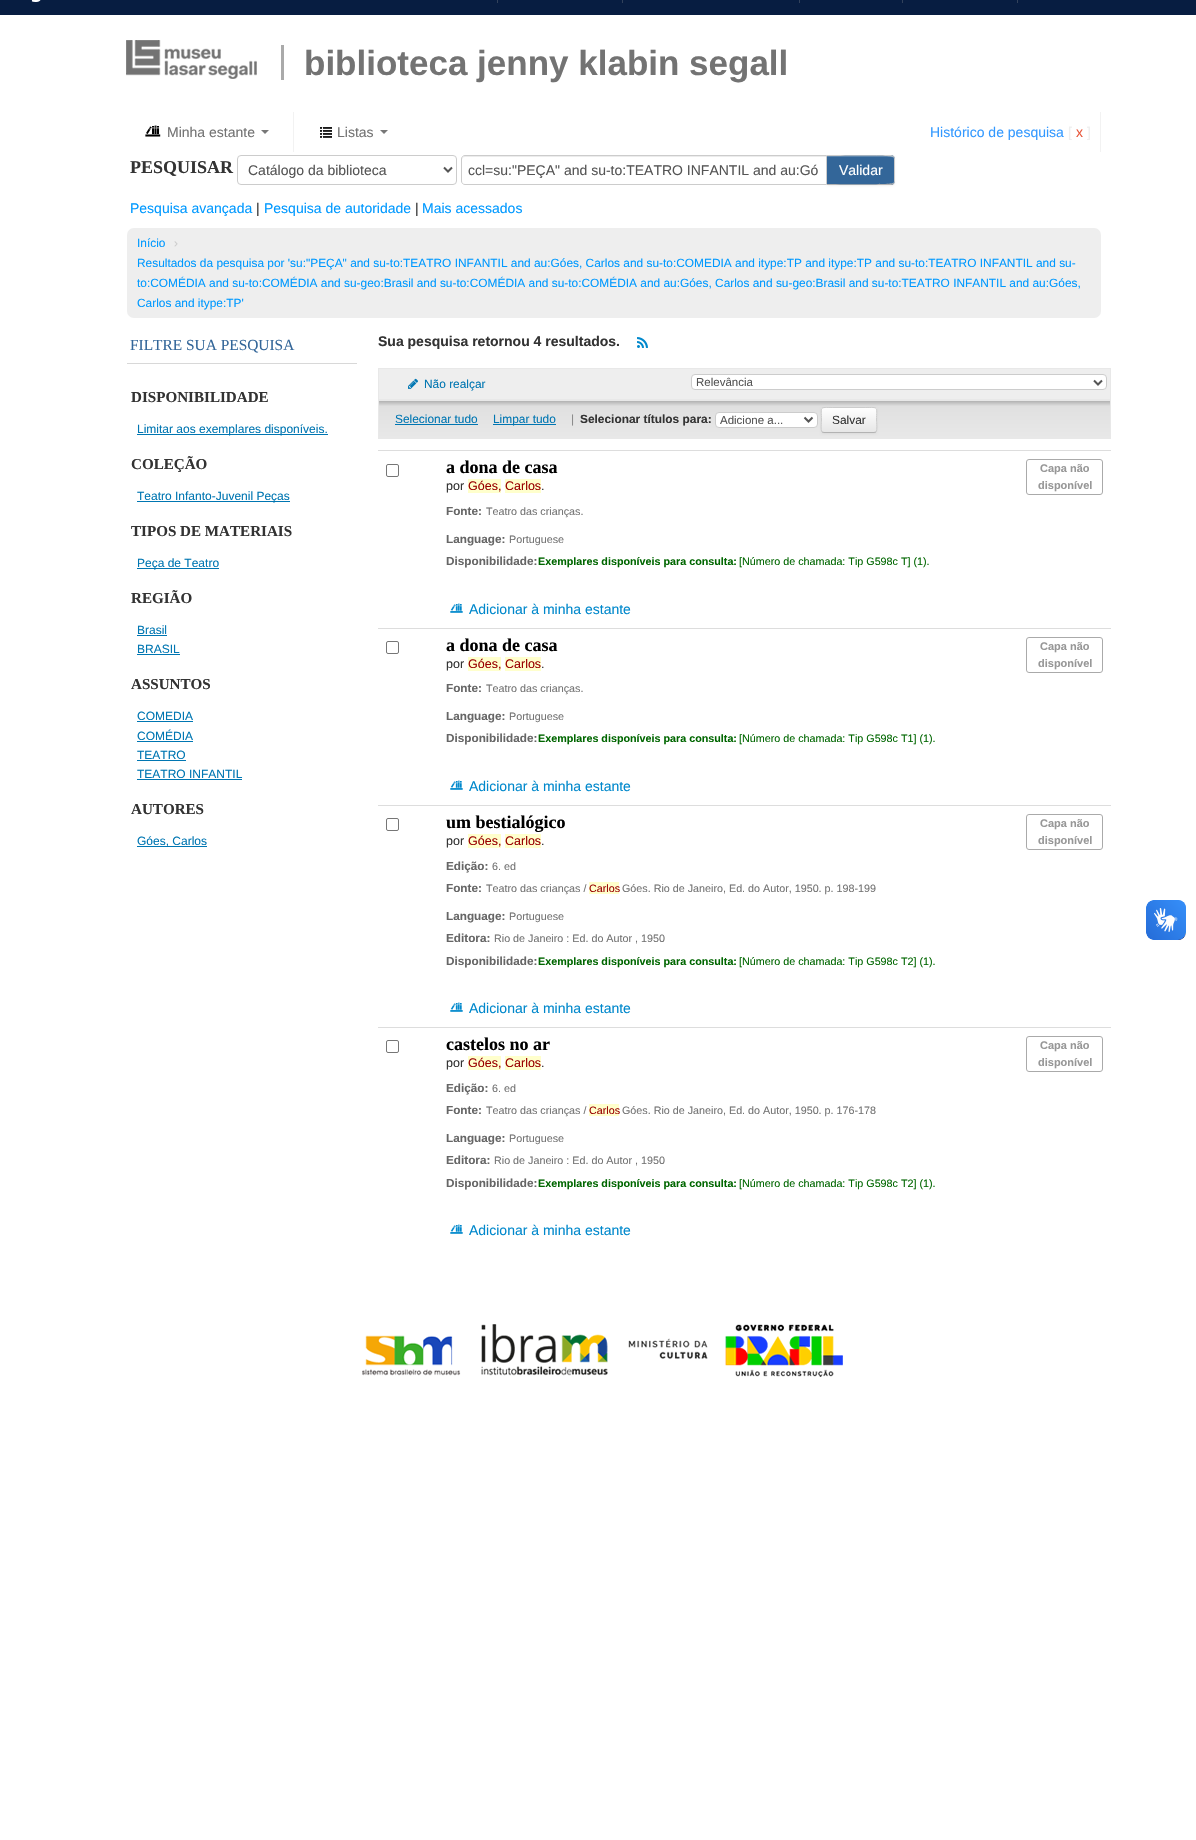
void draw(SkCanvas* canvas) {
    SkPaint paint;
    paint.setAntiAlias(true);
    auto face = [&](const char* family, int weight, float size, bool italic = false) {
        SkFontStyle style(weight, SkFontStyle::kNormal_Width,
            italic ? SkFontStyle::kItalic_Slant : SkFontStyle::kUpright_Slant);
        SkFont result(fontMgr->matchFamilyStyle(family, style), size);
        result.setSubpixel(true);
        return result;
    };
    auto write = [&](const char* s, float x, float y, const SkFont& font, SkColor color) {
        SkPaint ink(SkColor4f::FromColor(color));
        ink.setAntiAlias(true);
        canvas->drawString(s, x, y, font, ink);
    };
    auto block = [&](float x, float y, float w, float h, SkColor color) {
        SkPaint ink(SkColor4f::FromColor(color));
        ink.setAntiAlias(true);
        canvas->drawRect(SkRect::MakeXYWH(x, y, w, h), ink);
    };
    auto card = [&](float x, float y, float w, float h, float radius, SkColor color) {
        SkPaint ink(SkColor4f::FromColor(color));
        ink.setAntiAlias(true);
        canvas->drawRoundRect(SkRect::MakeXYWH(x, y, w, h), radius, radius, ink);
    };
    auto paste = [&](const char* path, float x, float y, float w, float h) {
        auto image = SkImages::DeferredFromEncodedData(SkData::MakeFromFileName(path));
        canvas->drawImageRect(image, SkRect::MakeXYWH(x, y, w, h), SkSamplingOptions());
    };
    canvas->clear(SK_ColorWHITE);
    block(0, 0, 1196, 15, SkColorSetRGB(7, 29, 65));
    paste("pic1.png", 31, 0, 10, 2);
    block(497, 0, 1, 3, SkColorSetRGB(50, 66, 91));
    block(622, 0, 1, 3, SkColorSetRGB(50, 66, 91));
    block(799, 0, 1, 3, SkColorSetRGB(50, 66, 91));
    block(902, 0, 1, 3, SkColorSetRGB(50, 66, 91));
    block(1017, 0, 1, 3, SkColorSetRGB(50, 66, 91));
    paste("pic2.png", 126, 40, 131, 39);
    block(281, 45, 3, 35, SkColorSetRGB(170, 170, 170));
    auto kFont1 = face("Liberation Sans", 700, 35);
    write("biblioteca jenny klabin segall", 304, 75, kFont1, SkColorSetRGB(115, 115, 115));
    paste("pic3.png", 145, 125, 16, 12);
    auto kFont2 = face("Liberation Sans", 400, 14);
    write("Minha estante", 167, 137, kFont2, SkColorSetRGB(115, 115, 115));
    paint.setColor(SkColorSetRGB(119, 119, 119));
    canvas->drawPath(SkPathBuilder().moveTo(261, 130).lineTo(269, 130).lineTo(265, 134).close().detach(), paint);
    block(293, 112, 1, 40, SkColorSetRGB(242, 242, 242));
    paste("pic4.png", 320, 127, 12, 11);
    write("Listas", 337, 137, kFont2, SkColorSetRGB(115, 115, 115));
    canvas->drawPath(SkPathBuilder().moveTo(380, 130).lineTo(388, 130).lineTo(384, 134).close().detach(), paint);
    write("Histórico de pesquisa", 930, 137, kFont2, SkColorSetRGB(51, 153, 255));
    write("[", 1068, 137, kFont2, SkColorSetRGB(238, 238, 238));
    write("x", 1076, 137, kFont2, SkColorSetRGB(232, 88, 60));
    write("]", 1087, 137, kFont2, SkColorSetRGB(238, 238, 238));
    block(1100, 112, 1, 40, SkColorSetRGB(242, 242, 242));
    auto kFont3 = face("Liberation Serif", 700, 18);
    write("PESQUISAR", 130, 173, kFont3, SkColorSetRGB(51, 51, 51));
    paint.setStyle(SkPaint::kStroke_Style);
    paint.setStrokeWidth(1);
    paint.setColor(SkColorSetRGB(204, 204, 204));
    canvas->drawRoundRect(SkRect::MakeXYWH(237.5f, 155.5f, 219, 29), 3.5f, 3.5f, paint);
    paint.setStrokeWidth(2);
    paint.setColor(SkColorSetRGB(85, 85, 85));
    canvas->drawPath(SkPathBuilder().moveTo(444, 167.5f).lineTo(448, 171.5f).lineTo(452, 167.5f).detach(), paint);
    write("Catálogo da biblioteca", 248, 175, kFont2, SkColorSetRGB(85, 85, 85));
    paint.setStyle(SkPaint::kFill_Style);
    paint.setColor(SkColorSetARGB(13, 0, 0, 0));
    paint.setMaskFilter(SkMaskFilter::MakeBlur(kNormal_SkBlurStyle, 1));
    canvas->drawRoundRect(SkRect::MakeXYWH(826, 156, 69, 30), 4, 4, paint);
    paint.setMaskFilter(nullptr);
    paint.setColor(SkColorSetRGB(51, 102, 153));
    canvas->drawPath(SkPathBuilder().moveTo(826, 155).lineTo(891, 155).cubicTo(893, 155, 895, 157, 895, 159).lineTo(895, 181).cubicTo(895, 183, 893, 185, 891, 185).lineTo(826, 185).close().detach(), paint);
    paint.setColor(SkColorSetRGB(92, 133, 173));
    canvas->drawPath(SkPathBuilder().moveTo(827, 157).lineTo(891, 157).cubicTo(893, 157, 894, 158, 894, 160).lineTo(894, 159).cubicTo(894, 157, 893, 156, 891, 156).lineTo(827, 156).close().detach(), paint);
    paint.setColor(SkColorSetRGB(204, 204, 204));
    canvas->drawPath(SkPathBuilder().moveTo(826, 155).lineTo(827, 156).cubicTo(834, 156, 892, 155, 893, 157).lineTo(894, 156).lineTo(891, 155).close().detach(), paint);
    canvas->drawPath(SkPathBuilder().moveTo(895, 181).lineTo(895, 159).cubicTo(895, 158, 894.5f, 157, 894, 156).lineTo(893, 157).cubicTo(894, 157, 894, 158, 894, 159).lineTo(894, 181).cubicTo(894, 182, 894, 183, 893, 183).lineTo(894, 184).cubicTo(894.5f, 183, 895, 182, 895, 181).close().detach(), paint);
    paint.setColor(SkColorSetRGB(179, 179, 179));
    canvas->drawPath(SkPathBuilder().moveTo(891, 185).lineTo(894, 184).lineTo(893, 183).cubicTo(892, 185, 834, 184, 827, 184).lineTo(826, 185).close().detach(), paint);
    paint.setColor(SK_ColorWHITE);
    canvas->drawPath(SkPathBuilder().moveTo(465, 155).lineTo(827, 155).lineTo(827, 185).lineTo(465, 185).cubicTo(463, 185, 461, 183, 461, 181).lineTo(461, 159).cubicTo(461, 157, 463, 155, 465, 155).close().detach(), paint);
    paint.setColor(SkColorSetRGB(236, 236, 236));
    canvas->drawPath(SkPathBuilder().moveTo(465, 157).lineTo(826, 157).lineTo(826, 156).lineTo(465, 156).cubicTo(463, 156, 462, 157, 462, 159).lineTo(462, 160).cubicTo(462, 158, 463, 157, 465, 157).close().detach(), paint);
    paint.setStyle(SkPaint::kStroke_Style);
    paint.setStrokeWidth(1);
    paint.setColor(SkColorSetRGB(204, 204, 204));
    canvas->drawPath(SkPathBuilder().moveTo(465, 155.5f).lineTo(826.5f, 155.5f).lineTo(826.5f, 184.5f).lineTo(465, 184.5f).cubicTo(463, 184.5f, 461.5f, 183, 461.5f, 181).lineTo(461.5f, 159).cubicTo(461.5f, 157, 463, 155.5f, 465, 155.5f).close().detach(), paint);
    write("ccl=su:\"PEÇA\" and su-to:TEATRO INFANTIL and au:Gó", 468, 175, kFont2, SkColorSetRGB(85, 85, 85));
    write("Validar", 839, 175, kFont2, SK_ColorWHITE);
    write("Pesquisa avançada", 130, 213, kFont2, SkColorSetRGB(0, 153, 255));
    write("|", 256, 213, kFont2, SkColorSetRGB(51, 51, 51));
    write("Pesquisa de autoridade", 264, 213, kFont2, SkColorSetRGB(0, 153, 255));
    write("|", 415, 213, kFont2, SkColorSetRGB(51, 51, 51));
    write("Mais acessados", 422, 213, kFont2, SkColorSetRGB(0, 153, 255));
    card(127, 228, 974, 90, 7, SkColorSetRGB(238, 238, 238));
    auto kFont4 = face("Liberation Sans", 400, 11.9f);
    write("Início", 137, 247, kFont4, SkColorSetRGB(0, 153, 255));
    write("›", 174, 247, kFont4, SkColorSetRGB(204, 204, 204));
    write("Resultados da pesquisa por 'su:\"PEÇA\" and su-to:TEATRO INFANTIL and au:Góes, Carlos and su-to:COMEDIA and itype:TP and itype:TP and su-to:TEATRO INFANTIL and su-", 137, 267, kFont4, SkColorSetRGB(0, 153, 255));
    write("to:COMÉDIA and su-to:COMÉDIA and su-geo:Brasil and su-to:COMÉDIA and su-to:COMÉDIA and au:Góes, Carlos and su-geo:Brasil and su-to:TEATRO INFANTIL and au:Góes,", 137, 287, kFont4, SkColorSetRGB(0, 153, 255));
    write("Carlos and itype:TP'", 137, 307, kFont4, SkColorSetRGB(0, 153, 255));
    block(127, 363, 230, 1, SkColorSetRGB(216, 216, 216));
    auto kFont5 = face("Liberation Serif", 400, 15.4f);
    write("FILTRE SUA PESQUISA", 130, 350, kFont5, SkColorSetRGB(51, 102, 153));
    auto kFont6 = face("Liberation Serif", 700, 15.1f);
    write("DISPONIBILIDADE", 131, 402, kFont6, SkColorSetRGB(51, 51, 51));
    block(137, 434, 191, 1, SkColorSetRGB(0, 118, 178));
    auto kFont7 = face("Liberation Sans", 400, 12);
    write("Limitar aos exemplares disponíveis.", 137, 433, kFont7, SkColorSetRGB(0, 118, 178));
    write("COLEÇÃO", 131, 469, kFont6, SkColorSetRGB(51, 51, 51));
    block(137, 501, 153, 1, SkColorSetRGB(0, 118, 178));
    write("Teatro Infanto-Juvenil Peças", 137, 500, kFont7, SkColorSetRGB(0, 118, 178));
    write("TIPOS DE MATERIAIS", 131, 536, kFont6, SkColorSetRGB(51, 51, 51));
    block(137, 568, 82, 1, SkColorSetRGB(0, 118, 178));
    write("Peça de Teatro", 137, 567, kFont7, SkColorSetRGB(0, 118, 178));
    write("REGIÃO", 131, 603, kFont6, SkColorSetRGB(51, 51, 51));
    write("Brasil", 137, 634, kFont7, SkColorSetRGB(0, 118, 178));
    block(137, 635, 30, 1, SkColorSetRGB(0, 118, 178));
    write("BRASIL", 137, 653, kFont7, SkColorSetRGB(0, 118, 178));
    block(137, 654, 43, 1, SkColorSetRGB(0, 118, 178));
    write("ASSUNTOS", 131, 689, kFont6, SkColorSetRGB(51, 51, 51));
    write("COMEDIA", 137, 720, kFont7, SkColorSetRGB(0, 118, 178));
    block(137, 721, 56, 1, SkColorSetRGB(0, 118, 178));
    write("COMÉDIA", 137, 740, kFont7, SkColorSetRGB(0, 118, 178));
    block(137, 741, 56, 1, SkColorSetRGB(0, 118, 178));
    write("TEATRO", 137, 759, kFont7, SkColorSetRGB(0, 118, 178));
    block(137, 760, 49, 1, SkColorSetRGB(0, 118, 178));
    write("TEATRO INFANTIL", 137, 778, kFont7, SkColorSetRGB(0, 118, 178));
    block(137, 779, 105, 1, SkColorSetRGB(0, 118, 178));
    write("AUTORES", 131, 814, kFont6, SkColorSetRGB(51, 51, 51));
    block(137, 846, 70, 1, SkColorSetRGB(0, 118, 178));
    write("Góes, Carlos", 137, 845, kFont7, SkColorSetRGB(0, 118, 178));
    auto kFont8 = face("Liberation Sans", 700, 14);
    write("Sua pesquisa retornou 4 resultados.", 378, 346, kFont8, SkColorSetRGB(51, 51, 51));
    paste("pic5.png", 637, 337, 11, 11);
    paint.setStyle(SkPaint::kFill_Style);
    paint.setColor(SkColorSetRGB(238, 238, 238));
    canvas->drawRect(SkRect::MakeXYWH(378.5f, 368.5f, 732, 31), paint);
    paint.setStyle(SkPaint::kStroke_Style);
    paint.setColor(SkColorSetRGB(232, 232, 232));
    canvas->drawRect(SkRect::MakeXYWH(378.5f, 368.5f, 732, 31), paint);
    paste("pic6.png", 408, 378, 10, 11);
    write("Não realçar", 424, 388, kFont4, SkColorSetRGB(0, 118, 178));
    paint.setStyle(SkPaint::kFill_Style);
    paint.setColor(SK_ColorWHITE);
    canvas->drawRoundRect(SkRect::MakeXYWH(691.5f, 374.5f, 415, 15), 3.5f, 3.5f, paint);
    paint.setStyle(SkPaint::kStroke_Style);
    paint.setColor(SkColorSetRGB(204, 204, 204));
    canvas->drawRoundRect(SkRect::MakeXYWH(691.5f, 374.5f, 415, 15), 3.5f, 3.5f, paint);
    paint.setStrokeWidth(2);
    paint.setColor(SkColorSetRGB(85, 85, 85));
    canvas->drawPath(SkPathBuilder().moveTo(1094, 380.5f).lineTo(1098, 384.5f).lineTo(1102, 380.5f).detach(), paint);
    auto kFont9 = face("Liberation Sans", 400, 11.5f);
    write("Relevância", 696, 386, kFont9, SkColorSetRGB(85, 85, 85));
    paint.setStyle(SkPaint::kFill_Style);
    {
        const SkColor colors[] = {SkColorSetRGB(178, 178, 178), SkColorSetRGB(224, 224, 224), SkColorSetRGB(232, 232, 232)};
        const float stops[] = {0, 0.14f, 1};
        const SkPoint ends[] = {{745, 401}, {745, 438}};
        paint.setShader(SkGradientShader::MakeLinear(ends, colors, stops, 3, SkTileMode::kClamp));
        paint.setAlpha(255);
    }
    canvas->drawRect(SkRect::MakeXYWH(379, 401, 731, 37), paint);
    paint.setStyle(SkPaint::kStroke_Style);
    paint.setStrokeWidth(1);
    paint.setShader(nullptr);
    paint.setColor(SkColorSetRGB(232, 232, 232));
    canvas->drawRect(SkRect::MakeXYWH(378.5f, 400.5f, 732, 38), paint);
    write("Selecionar tudo", 395, 423, kFont4, SkColorSetRGB(0, 118, 178));
    block(395, 424, 83, 1, SkColorSetRGB(0, 118, 178));
    block(493, 424, 63, 1, SkColorSetRGB(0, 118, 178));
    write("Limpar tudo", 493, 423, kFont4, SkColorSetRGB(0, 118, 178));
    write("|", 571, 423, kFont4, SkColorSetRGB(136, 136, 136));
    auto kFont10 = face("Liberation Sans", 700, 11.9f);
    write("Selecionar títulos para:", 580, 423, kFont10, SkColorSetRGB(51, 51, 51));
    paint.setStyle(SkPaint::kFill_Style);
    paint.setColor(SK_ColorWHITE);
    canvas->drawRoundRect(SkRect::MakeXYWH(715.5f, 412.5f, 102, 15), 3.5f, 3.5f, paint);
    paint.setStyle(SkPaint::kStroke_Style);
    paint.setColor(SkColorSetRGB(204, 204, 204));
    canvas->drawRoundRect(SkRect::MakeXYWH(715.5f, 412.5f, 102, 15), 3.5f, 3.5f, paint);
    paint.setStrokeWidth(2);
    paint.setColor(SkColorSetRGB(85, 85, 85));
    canvas->drawPath(SkPathBuilder().moveTo(804.5f, 417.5f).lineTo(808.5f, 421.5f).lineTo(812.5f, 417.5f).detach(), paint);
    write("Adicione a...", 720, 424, kFont9, SkColorSetRGB(85, 85, 85));
    paint.setStyle(SkPaint::kFill_Style);
    paint.setColor(SkColorSetARGB(13, 0, 0, 0));
    paint.setMaskFilter(SkMaskFilter::MakeBlur(kNormal_SkBlurStyle, 1));
    canvas->drawRoundRect(SkRect::MakeXYWH(821, 408, 56, 26), 3, 3, paint);
    paint.setMaskFilter(nullptr);
    canvas->save();
    canvas->clipPath(SkPathBuilder().moveTo(824, 407).lineTo(874, 407).cubicTo(875.5f, 407, 877, 408.5f, 877, 410).lineTo(877, 430).cubicTo(877, 431.5f, 875.5f, 433, 874, 433).lineTo(824, 433).cubicTo(822.5f, 433, 821, 431.5f, 821, 430).lineTo(821, 410).cubicTo(821, 408.5f, 822.5f, 407, 824, 407).close().detach(), true);
    {
        const SkColor colors[] = {SK_ColorWHITE, SkColorSetRGB(230, 230, 230)};
        const float stops[] = {0, 1};
        const SkPoint ends[] = {{849, 408}, {849, 432}};
        paint.setShader(SkGradientShader::MakeLinear(ends, colors, stops, 2, SkTileMode::kClamp));
        paint.setAlpha(255);
    }
    canvas->drawRect(SkRect::MakeXYWH(821, 408, 56, 24), paint);
    canvas->restore();
    paint.setShader(nullptr);
    paint.setColor(SkColorSetRGB(254, 254, 254));
    canvas->drawPath(SkPathBuilder().moveTo(824, 409).lineTo(874, 409).cubicTo(875, 409, 876, 410, 876, 411).cubicTo(876, 406, 870, 408, 866, 408).lineTo(832, 408).cubicTo(828, 408, 822, 406, 822, 411).cubicTo(822, 410, 823, 409, 824, 409).close().detach(), paint);
    paint.setStyle(SkPaint::kStroke_Style);
    paint.setStrokeWidth(1);
    paint.setColor(SkColorSetRGB(179, 179, 179));
    canvas->drawPath(SkPathBuilder().moveTo(876, 432).lineTo(874, 432.5f).lineTo(824, 432.5f).lineTo(822, 432).detach(), paint);
    paint.setColor(SkColorSetRGB(204, 204, 204));
    canvas->drawPath(SkPathBuilder().moveTo(822, 432).cubicTo(820.5f, 430, 821.5f, 422.5f, 821.5f, 420).cubicTo(821.5f, 406, 819, 407.5f, 832.5f, 407.5f).lineTo(865.5f, 407.5f).cubicTo(879, 407.5f, 876.5f, 406, 876.5f, 420).cubicTo(876.5f, 422.5f, 877.5f, 430, 876, 432).detach(), paint);
    write("Salvar", 832, 424, kFont4, SkColorSetRGB(51, 51, 51));
    paint.setColor(SkColorSetRGB(118, 118, 118));
    canvas->drawRoundRect(SkRect::MakeXYWH(386.5f, 464.5f, 12, 12), 1.5f, 1.5f, paint);
    block(378, 450, 733, 1, SkColorSetRGB(221, 221, 221));
    write("a dona de casa", 446, 473, kFont3, SK_ColorBLACK);
    auto kFont11 = face("Liberation Sans", 400, 12.5f);
    write("por", 446, 490, kFont11, SkColorSetRGB(51, 51, 51));
    block(468, 479, 33, 14, SkColorSetRGB(255, 255, 204));
    write("Góes,", 468, 490, kFont11, SkColorSetRGB(153, 0, 0));
    block(505, 479, 36, 14, SkColorSetRGB(255, 255, 204));
    write("Carlos", 505, 490, kFont11, SkColorSetRGB(153, 0, 0));
    write(".", 541, 490, kFont11, SkColorSetRGB(51, 51, 51));
    auto kFont12 = face("Liberation Sans", 700, 11.75f);
    write("Fonte:", 446, 515, kFont12, SkColorSetRGB(102, 102, 102));
    auto kFont13 = face("Liberation Sans", 400, 10.75f);
    write("Teatro das crianças.", 486, 515, kFont13, SkColorSetRGB(115, 115, 115));
    write("Language:", 446, 543, kFont12, SkColorSetRGB(102, 102, 102));
    write("Portuguese", 509, 543, kFont13, SkColorSetRGB(115, 115, 115));
    write("Disponibilidade:", 446, 565, kFont12, SkColorSetRGB(102, 102, 102));
    auto kFont14 = face("Liberation Sans", 700, 10.75f);
    write("Exemplares disponíveis para consulta:", 538, 565, kFont14, SkColorSetRGB(0, 102, 0));
    write("[Número de chamada: Tip G598c T] (1).", 739, 565, kFont13, SkColorSetRGB(0, 102, 0));
    paste("pic7.png", 450, 603, 13, 10);
    write("Adicionar à minha estante", 469, 614, kFont2, SkColorSetRGB(0, 136, 204));
    paint.setColor(SkColorSetRGB(170, 170, 170));
    canvas->drawRoundRect(SkRect::MakeXYWH(1026.5f, 459.5f, 76, 35), 2.5f, 2.5f, paint);
    auto kFont15 = face("Liberation Sans", 700, 11);
    write("Capa não", 1040, 472, kFont15, SkColorSetRGB(151, 151, 151));
    write("disponível", 1038, 489, kFont15, SkColorSetRGB(151, 151, 151));
    paint.setColor(SkColorSetRGB(118, 118, 118));
    canvas->drawRoundRect(SkRect::MakeXYWH(386.5f, 641.5f, 12, 12), 1.5f, 1.5f, paint);
    block(378, 628, 733, 1, SkColorSetRGB(221, 221, 221));
    write("a dona de casa", 446, 651, kFont3, SK_ColorBLACK);
    write("por", 446, 668, kFont11, SkColorSetRGB(51, 51, 51));
    block(468, 657, 33, 14, SkColorSetRGB(255, 255, 204));
    write("Góes,", 468, 668, kFont11, SkColorSetRGB(153, 0, 0));
    block(505, 657, 36, 14, SkColorSetRGB(255, 255, 204));
    write("Carlos", 505, 668, kFont11, SkColorSetRGB(153, 0, 0));
    write(".", 541, 668, kFont11, SkColorSetRGB(51, 51, 51));
    write("Fonte:", 446, 692, kFont12, SkColorSetRGB(102, 102, 102));
    write("Teatro das crianças.", 486, 692, kFont13, SkColorSetRGB(115, 115, 115));
    write("Language:", 446, 720, kFont12, SkColorSetRGB(102, 102, 102));
    write("Portuguese", 509, 720, kFont13, SkColorSetRGB(115, 115, 115));
    write("Disponibilidade:", 446, 742, kFont12, SkColorSetRGB(102, 102, 102));
    write("Exemplares disponíveis para consulta:", 538, 742, kFont14, SkColorSetRGB(0, 102, 0));
    write("[Número de chamada: Tip G598c T1] (1).", 739, 742, kFont13, SkColorSetRGB(0, 102, 0));
    paste("pic7.png", 450, 780, 13, 10);
    write("Adicionar à minha estante", 469, 791, kFont2, SkColorSetRGB(0, 136, 204));
    paint.setColor(SkColorSetRGB(170, 170, 170));
    canvas->drawRoundRect(SkRect::MakeXYWH(1026.5f, 637.5f, 76, 35), 2.5f, 2.5f, paint);
    write("Capa não", 1040, 650, kFont15, SkColorSetRGB(151, 151, 151));
    write("disponível", 1038, 667, kFont15, SkColorSetRGB(151, 151, 151));
    paint.setColor(SkColorSetRGB(118, 118, 118));
    canvas->drawRoundRect(SkRect::MakeXYWH(386.5f, 818.5f, 12, 12), 1.5f, 1.5f, paint);
    block(378, 805, 733, 1, SkColorSetRGB(221, 221, 221));
    write("um bestialógico", 446, 828, kFont3, SK_ColorBLACK);
    write("por", 446, 845, kFont11, SkColorSetRGB(51, 51, 51));
    block(468, 834, 33, 14, SkColorSetRGB(255, 255, 204));
    write("Góes,", 468, 845, kFont11, SkColorSetRGB(153, 0, 0));
    block(505, 834, 36, 14, SkColorSetRGB(255, 255, 204));
    write("Carlos", 505, 845, kFont11, SkColorSetRGB(153, 0, 0));
    write(".", 541, 845, kFont11, SkColorSetRGB(51, 51, 51));
    write("Edição:", 446, 870, kFont12, SkColorSetRGB(102, 102, 102));
    write("6. ed", 492, 870, kFont13, SkColorSetRGB(115, 115, 115));
    write("Fonte:", 446, 892, kFont12, SkColorSetRGB(102, 102, 102));
    write("Teatro das crianças /", 486, 892, kFont13, SkColorSetRGB(115, 115, 115));
    block(589, 882, 30, 12, SkColorSetRGB(255, 255, 204));
    write("Carlos", 589, 892, kFont13, SkColorSetRGB(153, 0, 0));
    write("Góes. Rio de Janeiro, Ed. do Autor, 1950. p. 198-199", 622, 892, kFont13, SkColorSetRGB(115, 115, 115));
    write("Language:", 446, 920, kFont12, SkColorSetRGB(102, 102, 102));
    write("Portuguese", 509, 920, kFont13, SkColorSetRGB(115, 115, 115));
    write("Editora:", 446, 942, kFont12, SkColorSetRGB(102, 102, 102));
    write("Rio de Janeiro : Ed. do Autor , 1950", 494, 942, kFont13, SkColorSetRGB(115, 115, 115));
    write("Disponibilidade:", 446, 965, kFont12, SkColorSetRGB(102, 102, 102));
    write("Exemplares disponíveis para consulta:", 538, 965, kFont14, SkColorSetRGB(0, 102, 0));
    write("[Número de chamada: Tip G598c T2] (1).", 739, 965, kFont13, SkColorSetRGB(0, 102, 0));
    paste("pic7.png", 450, 1002, 13, 10);
    write("Adicionar à minha estante", 469, 1013, kFont2, SkColorSetRGB(0, 136, 204));
    paint.setColor(SkColorSetRGB(170, 170, 170));
    canvas->drawRoundRect(SkRect::MakeXYWH(1026.5f, 814.5f, 76, 35), 2.5f, 2.5f, paint);
    write("Capa não", 1040, 827, kFont15, SkColorSetRGB(151, 151, 151));
    write("disponível", 1038, 844, kFont15, SkColorSetRGB(151, 151, 151));
    paint.setColor(SkColorSetRGB(118, 118, 118));
    canvas->drawRoundRect(SkRect::MakeXYWH(386.5f, 1040.5f, 12, 12), 1.5f, 1.5f, paint);
    block(378, 1027, 733, 1, SkColorSetRGB(221, 221, 221));
    write("castelos no ar", 446, 1050, kFont3, SK_ColorBLACK);
    write("por", 446, 1067, kFont11, SkColorSetRGB(51, 51, 51));
    block(468, 1056, 33, 14, SkColorSetRGB(255, 255, 204));
    write("Góes,", 468, 1067, kFont11, SkColorSetRGB(153, 0, 0));
    block(505, 1056, 36, 14, SkColorSetRGB(255, 255, 204));
    write("Carlos", 505, 1067, kFont11, SkColorSetRGB(153, 0, 0));
    write(".", 541, 1067, kFont11, SkColorSetRGB(51, 51, 51));
    write("Edição:", 446, 1092, kFont12, SkColorSetRGB(102, 102, 102));
    write("6. ed", 492, 1092, kFont13, SkColorSetRGB(115, 115, 115));
    write("Fonte:", 446, 1114, kFont12, SkColorSetRGB(102, 102, 102));
    write("Teatro das crianças /", 486, 1114, kFont13, SkColorSetRGB(115, 115, 115));
    block(589, 1104, 30, 12, SkColorSetRGB(255, 255, 204));
    write("Carlos", 589, 1114, kFont13, SkColorSetRGB(153, 0, 0));
    write("Góes. Rio de Janeiro, Ed. do Autor, 1950. p. 176-178", 622, 1114, kFont13, SkColorSetRGB(115, 115, 115));
    write("Language:", 446, 1142, kFont12, SkColorSetRGB(102, 102, 102));
    write("Portuguese", 509, 1142, kFont13, SkColorSetRGB(115, 115, 115));
    write("Editora:", 446, 1164, kFont12, SkColorSetRGB(102, 102, 102));
    write("Rio de Janeiro : Ed. do Autor , 1950", 494, 1164, kFont13, SkColorSetRGB(115, 115, 115));
    write("Disponibilidade:", 446, 1187, kFont12, SkColorSetRGB(102, 102, 102));
    write("Exemplares disponíveis para consulta:", 538, 1187, kFont14, SkColorSetRGB(0, 102, 0));
    write("[Número de chamada: Tip G598c T2] (1).", 739, 1187, kFont13, SkColorSetRGB(0, 102, 0));
    paste("pic7.png", 450, 1224, 13, 10);
    write("Adicionar à minha estante", 469, 1235, kFont2, SkColorSetRGB(0, 136, 204));
    paint.setColor(SkColorSetRGB(170, 170, 170));
    canvas->drawRoundRect(SkRect::MakeXYWH(1026.5f, 1036.5f, 76, 35), 2.5f, 2.5f, paint);
    write("Capa não", 1040, 1049, kFont15, SkColorSetRGB(151, 151, 151));
    write("disponível", 1038, 1066, kFont15, SkColorSetRGB(151, 151, 151));
    paste("pic8.png", 362, 1324, 481, 53);
    paste("pic9.png", 1146, 900, 40, 40);
    paste("pic10.png", 1146, 900, 40, 40);
}
